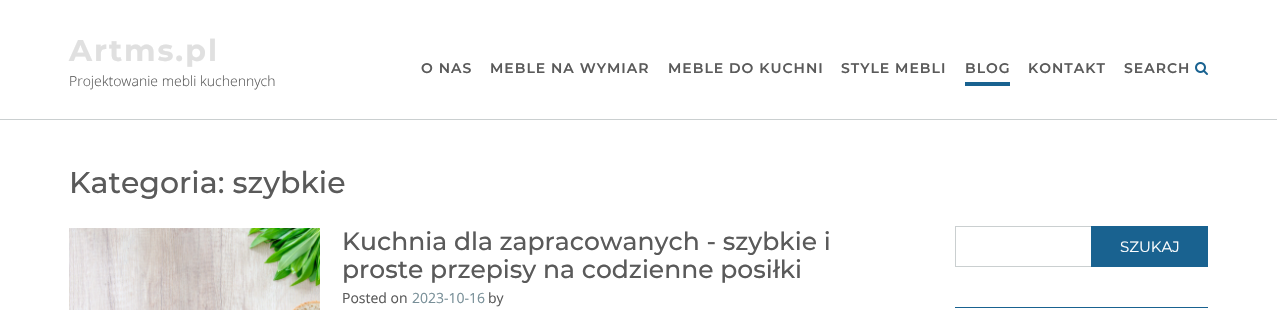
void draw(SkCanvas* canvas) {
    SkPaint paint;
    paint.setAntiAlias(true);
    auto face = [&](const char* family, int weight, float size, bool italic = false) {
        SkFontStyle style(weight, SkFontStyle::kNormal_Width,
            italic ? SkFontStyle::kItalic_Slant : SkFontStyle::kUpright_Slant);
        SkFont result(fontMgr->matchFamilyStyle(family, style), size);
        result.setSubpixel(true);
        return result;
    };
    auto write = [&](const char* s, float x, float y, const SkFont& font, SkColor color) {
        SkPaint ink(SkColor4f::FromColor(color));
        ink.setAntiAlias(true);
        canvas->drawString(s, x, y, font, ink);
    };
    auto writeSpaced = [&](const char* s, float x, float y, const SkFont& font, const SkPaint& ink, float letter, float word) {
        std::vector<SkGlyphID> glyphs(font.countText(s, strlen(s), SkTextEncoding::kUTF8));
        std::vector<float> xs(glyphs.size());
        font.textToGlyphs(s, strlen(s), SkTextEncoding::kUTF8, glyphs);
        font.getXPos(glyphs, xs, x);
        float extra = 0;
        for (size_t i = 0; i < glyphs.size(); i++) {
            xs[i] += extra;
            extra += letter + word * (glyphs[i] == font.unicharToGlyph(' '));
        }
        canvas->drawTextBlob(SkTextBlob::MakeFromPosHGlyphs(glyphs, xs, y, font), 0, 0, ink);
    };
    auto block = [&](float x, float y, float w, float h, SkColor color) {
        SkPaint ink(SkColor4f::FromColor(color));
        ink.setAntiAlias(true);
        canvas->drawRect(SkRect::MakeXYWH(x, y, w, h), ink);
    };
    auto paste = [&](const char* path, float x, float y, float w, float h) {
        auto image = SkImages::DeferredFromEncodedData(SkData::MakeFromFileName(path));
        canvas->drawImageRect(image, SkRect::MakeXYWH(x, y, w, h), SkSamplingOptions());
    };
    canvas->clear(SK_ColorWHITE);
    block(0, 119, 1277, 1, SkColorSetRGB(202, 207, 208));
    auto kFont1 = face("Montserrat", 700, 30);
    paint.setColor(SkColorSetRGB(224, 224, 224));
    writeSpaced("Artms.pl", 69, 61, kFont1, paint, 2, 0);
    auto kFont2 = face("Open Sans", 300, 14);
    write("Projektowanie mebli kuchennych", 69, 86, kFont2, SkColorSetRGB(90, 90, 90));
    auto kFont3 = face("Montserrat", 600, 14);
    paint.setColor(SkColorSetRGB(90, 90, 90));
    writeSpaced("O NAS", 421, 73, kFont3, paint, 1, 0);
    writeSpaced("MEBLE NA WYMIAR", 490, 73, kFont3, paint, 1, 0);
    writeSpaced("MEBLE DO KUCHNI", 668, 73, kFont3, paint, 1, 0);
    writeSpaced("STYLE MEBLI", 841, 73, kFont3, paint, 1, 0);
    writeSpaced("BLOG", 965, 73, kFont3, paint, 1, 0);
    block(965, 82, 45, 4, SkColorSetRGB(25, 98, 144));
    writeSpaced("KONTAKT", 1028, 73, kFont3, paint, 1, 0);
    writeSpaced("SEARCH", 1124, 73, kFont3, paint, 1, 0);
    paste("pic1.png", 1195, 62, 13, 13);
    auto kFont4 = face("Montserrat", 500, 30);
    write("Kategoria: szybkie", 69, 193, kFont4, SkColorSetRGB(90, 90, 90));
    paste("pic2.png", 69, 228, 251, 82);
    auto kFont5 = face("Montserrat", 500, 25);
    write("Kuchnia dla zapracowanych - szybkie i", 342, 250, kFont5, SkColorSetRGB(90, 90, 90));
    write("proste przepisy na codzienne posiłki", 342, 278, kFont5, SkColorSetRGB(90, 90, 90));
    auto kFont6 = face("Open Sans", 400, 14);
    write("Posted on", 342, 303, kFont6, SkColorSetRGB(90, 90, 90));
    write("2023-10-16", 412, 303, kFont6, SkColorSetRGB(120, 143, 152));
    write("by", 488, 303, kFont6, SkColorSetRGB(90, 90, 90));
    block(955, 307, 253, 1, SkColorSetRGB(25, 98, 144));
    block(955, 226, 136, 1, SkColorSetRGB(202, 207, 208));
    block(955, 266, 136, 1, SkColorSetRGB(202, 207, 208));
    block(955, 226, 1, 41, SkColorSetRGB(202, 207, 208));
    block(1091, 226, 117, 41, SkColorSetRGB(25, 98, 144));
    auto kFont7 = face("Montserrat", 400, 15);
    write("SZUKAJ", 1120, 252, kFont7, SK_ColorWHITE);
}
